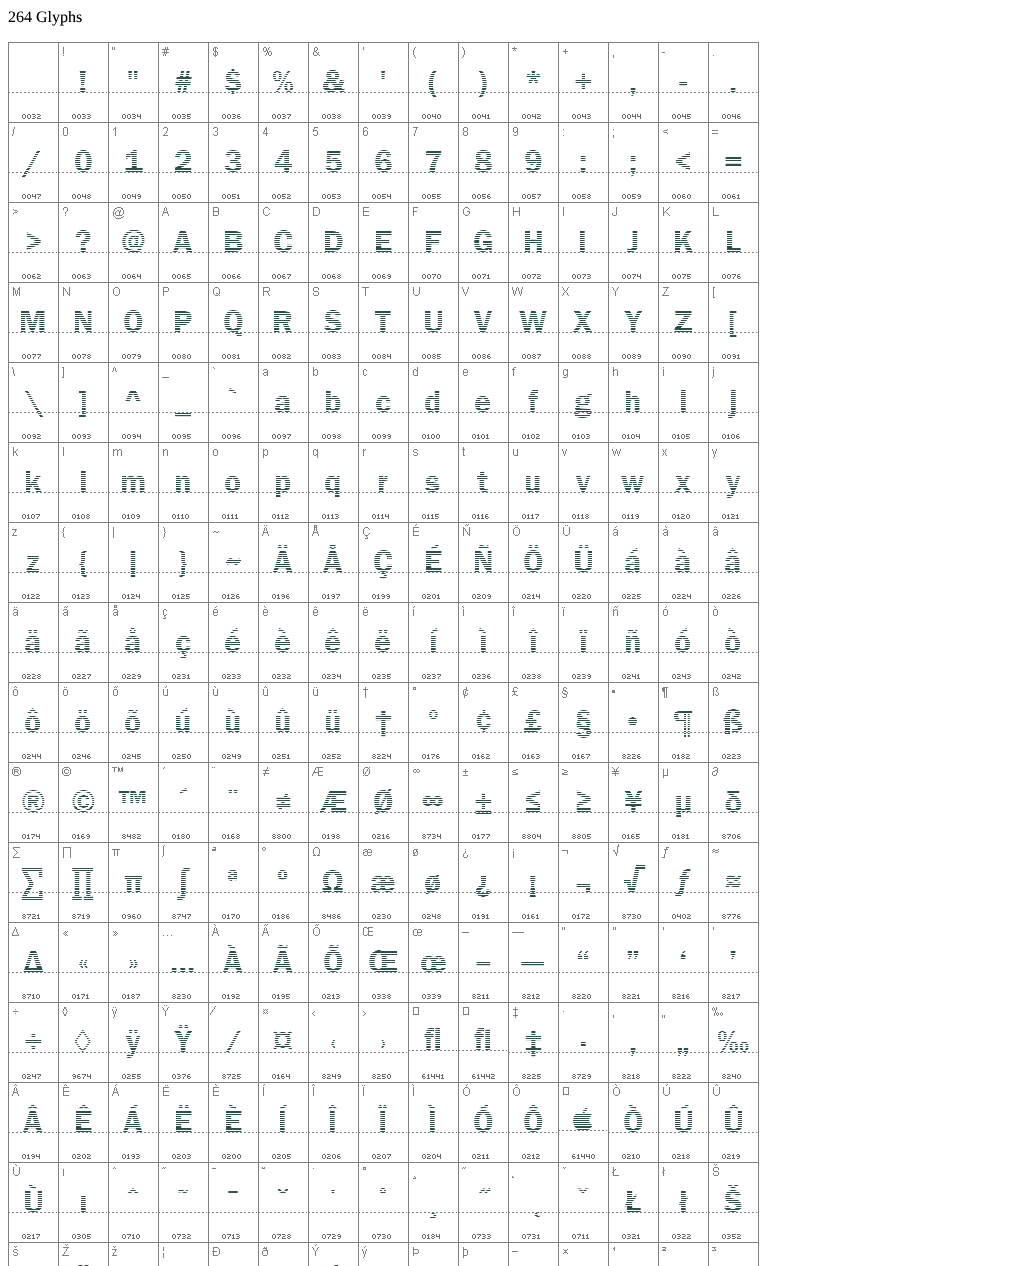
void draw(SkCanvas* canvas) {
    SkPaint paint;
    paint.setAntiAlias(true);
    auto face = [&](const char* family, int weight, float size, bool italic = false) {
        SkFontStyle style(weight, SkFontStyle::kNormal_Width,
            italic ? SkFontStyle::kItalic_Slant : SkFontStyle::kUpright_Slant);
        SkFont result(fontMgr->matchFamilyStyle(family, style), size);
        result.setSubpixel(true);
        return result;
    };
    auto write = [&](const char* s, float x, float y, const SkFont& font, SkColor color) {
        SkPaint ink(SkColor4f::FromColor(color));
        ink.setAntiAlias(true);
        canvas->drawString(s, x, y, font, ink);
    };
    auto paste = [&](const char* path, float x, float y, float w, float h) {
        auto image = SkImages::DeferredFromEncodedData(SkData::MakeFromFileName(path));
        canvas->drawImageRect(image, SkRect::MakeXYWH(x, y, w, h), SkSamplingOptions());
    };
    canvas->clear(SK_ColorWHITE);
    auto kFont1 = face("Liberation Serif", 400, 16);
    write("264 Glyphs", 8, 22, kFont1, SK_ColorBLACK);
    paste("pic1.png", 8, 42, 751, 1224);
}
